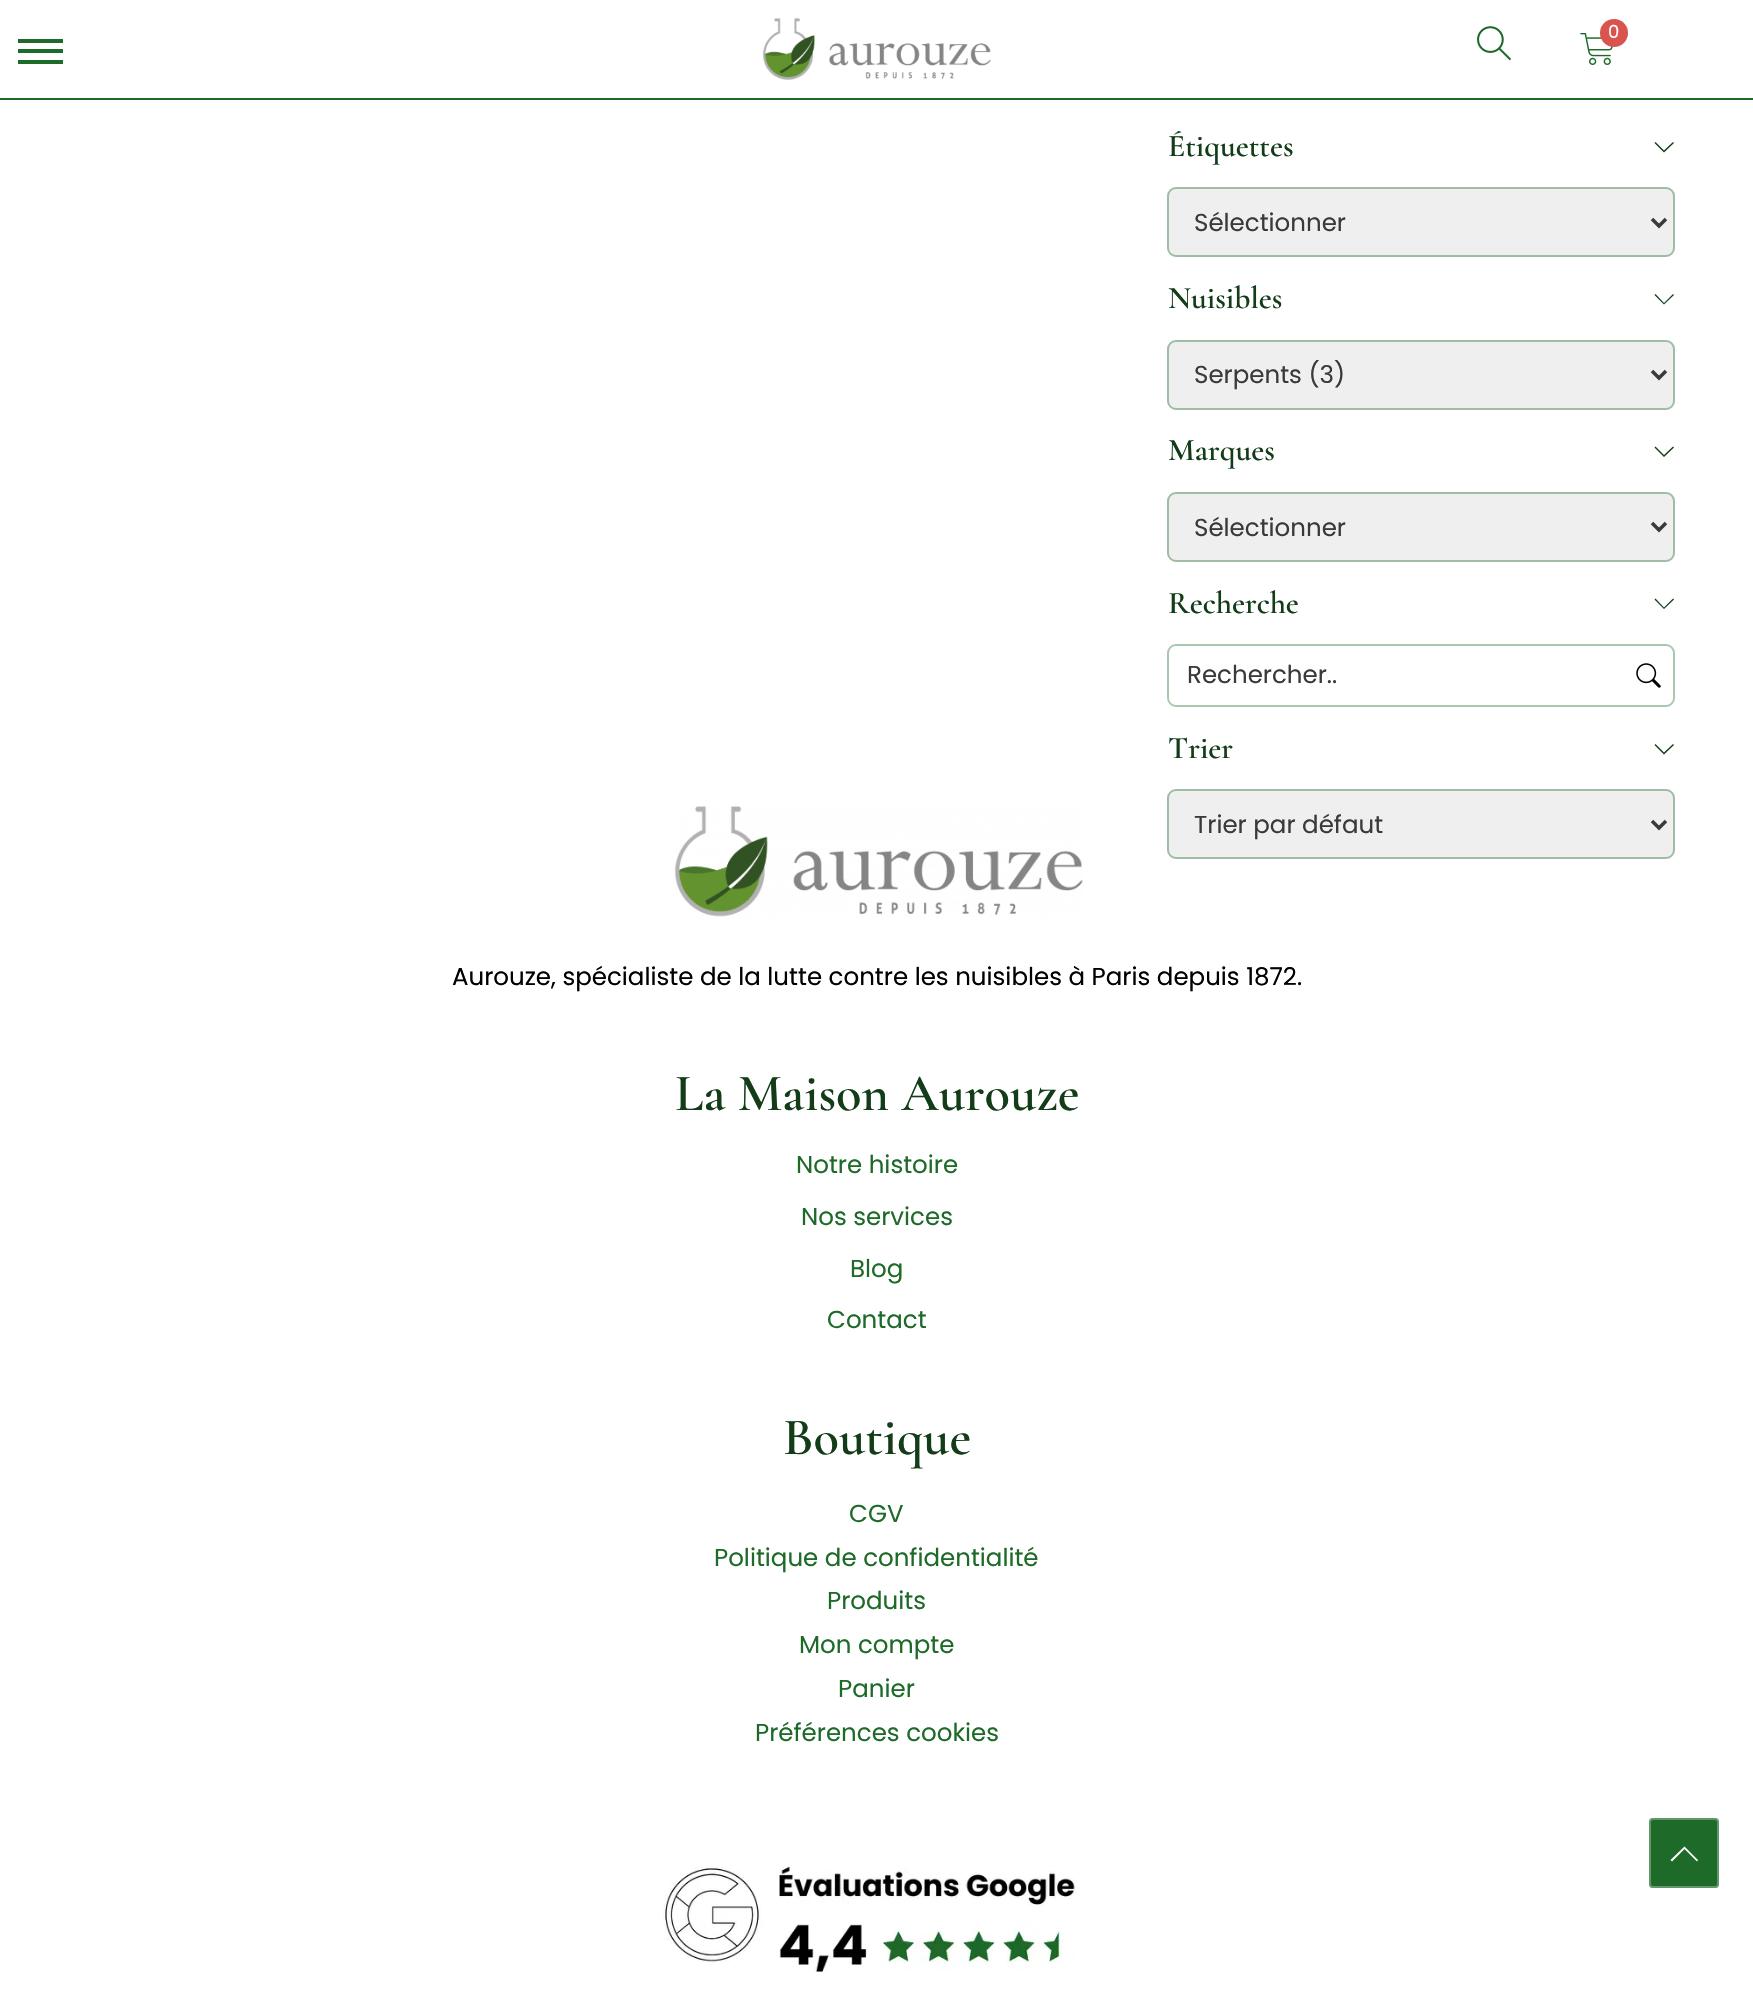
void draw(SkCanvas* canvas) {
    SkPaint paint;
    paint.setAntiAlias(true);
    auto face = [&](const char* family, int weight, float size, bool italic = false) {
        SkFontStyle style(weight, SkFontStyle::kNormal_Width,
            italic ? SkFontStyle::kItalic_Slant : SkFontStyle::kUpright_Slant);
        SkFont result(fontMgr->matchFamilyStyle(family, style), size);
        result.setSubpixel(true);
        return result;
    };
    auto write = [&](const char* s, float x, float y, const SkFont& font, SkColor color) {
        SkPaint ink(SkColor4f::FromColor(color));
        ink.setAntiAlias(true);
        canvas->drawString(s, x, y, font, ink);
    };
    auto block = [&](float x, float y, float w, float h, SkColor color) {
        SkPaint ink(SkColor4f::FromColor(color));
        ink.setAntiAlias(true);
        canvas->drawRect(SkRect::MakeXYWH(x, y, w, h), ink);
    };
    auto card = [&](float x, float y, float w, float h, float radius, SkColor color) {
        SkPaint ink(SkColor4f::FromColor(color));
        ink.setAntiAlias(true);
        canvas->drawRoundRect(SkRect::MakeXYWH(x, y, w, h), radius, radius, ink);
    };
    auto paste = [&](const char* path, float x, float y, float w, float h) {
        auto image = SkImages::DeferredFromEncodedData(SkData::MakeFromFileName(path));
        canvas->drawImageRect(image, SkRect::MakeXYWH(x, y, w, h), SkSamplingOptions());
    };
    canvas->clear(SK_ColorWHITE);
    block(0, 98, 1753, 2, SkColorSetRGB(30, 106, 41));
    paste("pic1.png", 762, 18, 229, 62);
    paste("pic2.png", 1477, 26, 35, 35);
    paste("pic3.png", 1580, 33, 33, 32);
    paint.setColor(SkColorSetRGB(217, 83, 79));
    canvas->drawCircle(1614, 33, 14, paint);
    auto kFont1 = face("Poppins", 400, 18);
    write("0", 1608, 38, kFont1, SK_ColorWHITE);
    block(18, 49, 45, 4, SkColorSetRGB(30, 106, 41));
    block(18, 39, 45, 4, SkColorSetRGB(30, 106, 41));
    block(18, 60, 45, 4, SkColorSetRGB(30, 106, 41));
    auto kFont2 = face("Cormorant Garamond", 600, 31.5f);
    write("Étiquettes", 1168, 156, kFont2, SkColorSetRGB(19, 60, 25));
    paint.setColor(SkColorSetRGB(19, 60, 25));
    canvas->drawPath(SkPathBuilder().moveTo(1674, 143).lineTo(1664, 152.5f).lineTo(1654.5f, 143).lineTo(1655.5f, 142).lineTo(1664, 150.5f).lineTo(1673, 142).close().detach(), paint);
    card(1167, 187, 508, 70, 9, SkColorSetRGB(239, 239, 239));
    paint.setStyle(SkPaint::kStroke_Style);
    paint.setStrokeWidth(2);
    paint.setColor(SkColorSetARGB(97, 30, 106, 41));
    canvas->drawRoundRect(SkRect::MakeXYWH(1168, 188, 506, 68), 8, 8, paint);
    paint.setStrokeWidth(3.5f);
    paint.setColor(SkColorSetRGB(58, 58, 58));
    canvas->drawPath(SkPathBuilder().moveTo(1652, 219).lineTo(1659, 226).lineTo(1666, 219).detach(), paint);
    auto kFont3 = face("Poppins", 400, 24.5f);
    write("Sélectionner", 1194, 231, kFont3, SkColorSetRGB(58, 58, 58));
    write("Nuisibles", 1168, 308, kFont2, SkColorSetRGB(19, 60, 25));
    paint.setStyle(SkPaint::kFill_Style);
    paint.setColor(SkColorSetRGB(19, 60, 25));
    canvas->drawPath(SkPathBuilder().moveTo(1674, 295).lineTo(1664, 304.5f).lineTo(1654.5f, 295).lineTo(1655.5f, 294).lineTo(1664, 303).lineTo(1673, 294).close().detach(), paint);
    card(1167, 340, 508, 70, 9, SkColorSetRGB(239, 239, 239));
    paint.setStyle(SkPaint::kStroke_Style);
    paint.setStrokeWidth(2);
    paint.setColor(SkColorSetARGB(97, 30, 106, 41));
    canvas->drawRoundRect(SkRect::MakeXYWH(1168, 341, 506, 68), 8, 8, paint);
    paint.setStrokeWidth(3.5f);
    paint.setColor(SkColorSetRGB(58, 58, 58));
    canvas->drawPath(SkPathBuilder().moveTo(1652, 371).lineTo(1659, 378).lineTo(1666, 371).detach(), paint);
    write("Serpents (3)", 1194, 383, kFont3, SkColorSetRGB(58, 58, 58));
    write("Marques", 1168, 460, kFont2, SkColorSetRGB(19, 60, 25));
    paint.setStyle(SkPaint::kFill_Style);
    paint.setColor(SkColorSetRGB(19, 60, 25));
    canvas->drawPath(SkPathBuilder().moveTo(1674, 447.5f).lineTo(1664, 457).lineTo(1654.5f, 447.5f).lineTo(1655.5f, 446.5f).lineTo(1664, 455).lineTo(1673, 446.5f).close().detach(), paint);
    card(1167, 492, 508, 70, 9, SkColorSetRGB(239, 239, 239));
    paint.setStyle(SkPaint::kStroke_Style);
    paint.setStrokeWidth(2);
    paint.setColor(SkColorSetARGB(97, 30, 106, 41));
    canvas->drawRoundRect(SkRect::MakeXYWH(1168, 493, 506, 68), 8, 8, paint);
    paint.setStrokeWidth(3.5f);
    paint.setColor(SkColorSetRGB(58, 58, 58));
    canvas->drawPath(SkPathBuilder().moveTo(1652, 523).lineTo(1659, 530).lineTo(1666, 523).detach(), paint);
    write("Sélectionner", 1194, 536, kFont3, SkColorSetRGB(58, 58, 58));
    write("Recherche", 1168, 613, kFont2, SkColorSetRGB(19, 60, 25));
    paint.setStyle(SkPaint::kFill_Style);
    paint.setColor(SkColorSetRGB(19, 60, 25));
    canvas->drawPath(SkPathBuilder().moveTo(1674, 599.5f).lineTo(1664, 609).lineTo(1654.5f, 599.5f).lineTo(1655.5f, 598.5f).lineTo(1664, 607.5f).lineTo(1673, 598.5f).close().detach(), paint);
    paint.setStyle(SkPaint::kStroke_Style);
    paint.setStrokeWidth(2);
    paint.setColor(SkColorSetRGB(170, 199, 175));
    canvas->drawRoundRect(SkRect::MakeXYWH(1168, 645, 506, 61), 8, 8, paint);
    write("Rechercher..", 1187, 683, kFont3, SkColorSetRGB(58, 58, 58));
    paste("pic4.png", 1636, 663, 25, 25);
    write("Trier", 1168, 758, kFont2, SkColorSetRGB(19, 60, 25));
    paint.setStyle(SkPaint::kFill_Style);
    paint.setColor(SkColorSetRGB(19, 60, 25));
    canvas->drawPath(SkPathBuilder().moveTo(1674, 745).lineTo(1664, 754.5f).lineTo(1654.5f, 745).lineTo(1655.5f, 744).lineTo(1664, 752.5f).lineTo(1673, 744).close().detach(), paint);
    card(1167, 789, 508, 70, 9, SkColorSetRGB(239, 239, 239));
    paint.setStyle(SkPaint::kStroke_Style);
    paint.setColor(SkColorSetARGB(97, 30, 106, 41));
    canvas->drawRoundRect(SkRect::MakeXYWH(1168, 790, 506, 68), 8, 8, paint);
    paint.setStrokeWidth(3.5f);
    paint.setColor(SkColorSetRGB(58, 58, 58));
    canvas->drawPath(SkPathBuilder().moveTo(1652, 821).lineTo(1659, 828).lineTo(1666, 821).detach(), paint);
    write("Trier par défaut", 1194, 833, kFont3, SkColorSetRGB(58, 58, 58));
    paste("pic5.png", 674, 806, 409, 111);
    write("Aurouze, spécialiste de la lutte contre les nuisibles à Paris depuis 1872.", 452, 985, kFont3, SK_ColorBLACK);
    auto kFont4 = face("Cormorant Garamond", 600, 52.5f);
    write("La Maison Aurouze", 675, 1110, kFont4, SkColorSetRGB(19, 60, 25));
    write("Notre histoire", 796, 1173, kFont3, SkColorSetRGB(30, 106, 41));
    write("Nos services", 801, 1225, kFont3, SkColorSetRGB(30, 106, 41));
    write("Blog", 850, 1277, kFont3, SkColorSetRGB(30, 106, 41));
    write("Contact", 827, 1328, kFont3, SkColorSetRGB(30, 106, 41));
    write("Boutique", 783, 1454, kFont4, SkColorSetRGB(19, 60, 25));
    write("CGV", 849, 1522, kFont3, SkColorSetRGB(30, 106, 41));
    write("Politique de confidentialité", 714, 1566, kFont3, SkColorSetRGB(30, 106, 41));
    write("Produits", 827, 1609, kFont3, SkColorSetRGB(30, 106, 41));
    write("Mon compte", 799, 1653, kFont3, SkColorSetRGB(30, 106, 41));
    write("Panier", 838, 1697, kFont3, SkColorSetRGB(30, 106, 41));
    write("Préférences cookies", 755, 1741, kFont3, SkColorSetRGB(30, 106, 41));
    paste("pic6.png", 663, 1866, 413, 106);
    card(1649, 1818, 70, 70, 4, SkColorSetRGB(30, 106, 41));
    paint.setStrokeWidth(2);
    paint.setColor(SkColorSetARGB(77, 255, 255, 255));
    canvas->drawRoundRect(SkRect::MakeXYWH(1650, 1819, 68, 68), 3, 3, paint);
    paint.setStyle(SkPaint::kFill_Style);
    paint.setColor(SK_ColorWHITE);
    canvas->drawPath(SkPathBuilder().moveTo(1698, 1860).lineTo(1697, 1861.5f).lineTo(1684.5f, 1849).lineTo(1672, 1861.5f).lineTo(1670.5f, 1860).lineTo(1684.5f, 1846.5f).close().detach(), paint);
}
